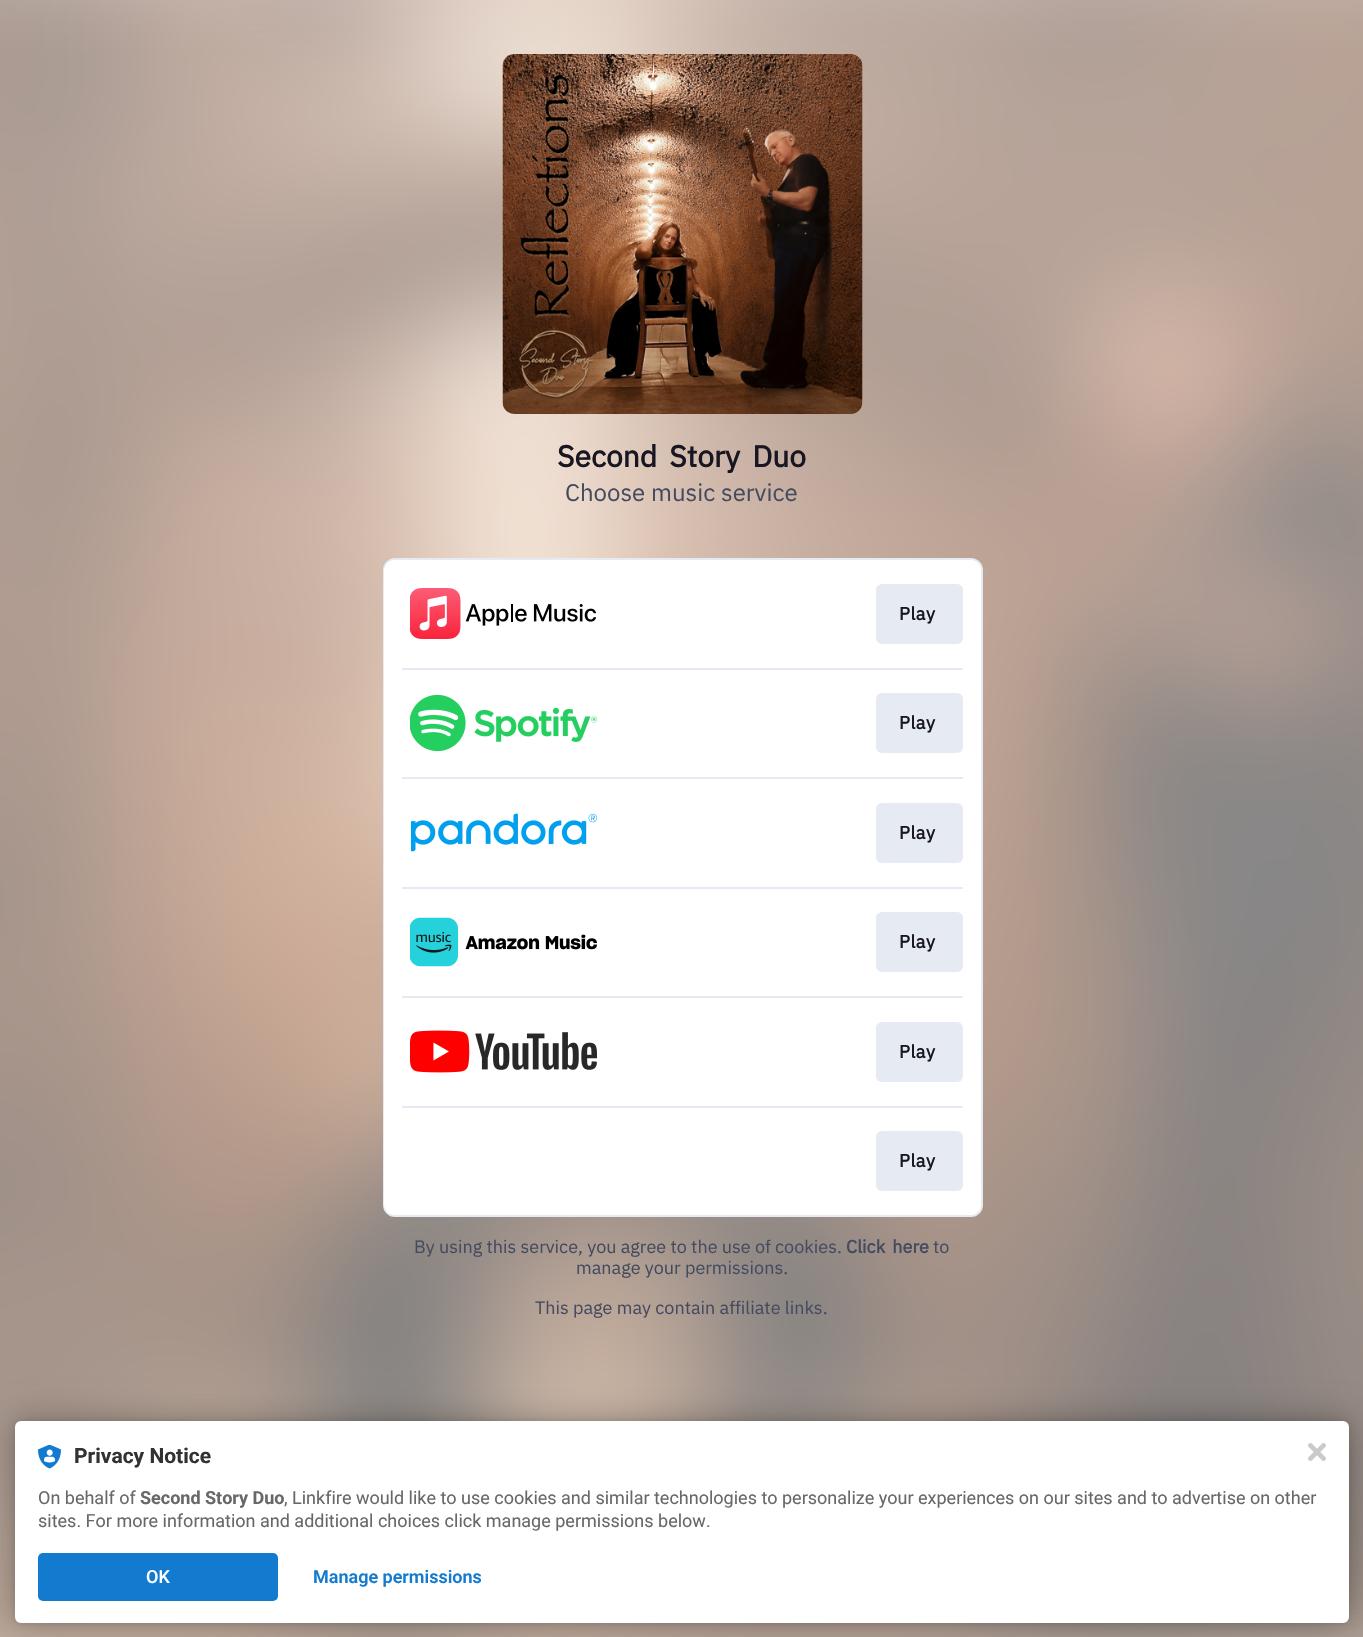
void draw(SkCanvas* canvas) {
    SkPaint paint;
    paint.setAntiAlias(true);
    auto face = [&](const char* family, int weight, float size, bool italic = false) {
        SkFontStyle style(weight, SkFontStyle::kNormal_Width,
            italic ? SkFontStyle::kItalic_Slant : SkFontStyle::kUpright_Slant);
        SkFont result(fontMgr->matchFamilyStyle(family, style), size);
        result.setSubpixel(true);
        return result;
    };
    auto write = [&](const char* s, float x, float y, const SkFont& font, SkColor color) {
        SkPaint ink(SkColor4f::FromColor(color));
        ink.setAntiAlias(true);
        canvas->drawString(s, x, y, font, ink);
    };
    auto writeSpaced = [&](const char* s, float x, float y, const SkFont& font, const SkPaint& ink, float letter, float word) {
        std::vector<SkGlyphID> glyphs(font.countText(s, strlen(s), SkTextEncoding::kUTF8));
        std::vector<float> xs(glyphs.size());
        font.textToGlyphs(s, strlen(s), SkTextEncoding::kUTF8, glyphs);
        font.getXPos(glyphs, xs, x);
        float extra = 0;
        for (size_t i = 0; i < glyphs.size(); i++) {
            xs[i] += extra;
            extra += letter + word * (glyphs[i] == font.unicharToGlyph(' '));
        }
        canvas->drawTextBlob(SkTextBlob::MakeFromPosHGlyphs(glyphs, xs, y, font), 0, 0, ink);
    };
    auto block = [&](float x, float y, float w, float h, SkColor color) {
        SkPaint ink(SkColor4f::FromColor(color));
        ink.setAntiAlias(true);
        canvas->drawRect(SkRect::MakeXYWH(x, y, w, h), ink);
    };
    auto card = [&](float x, float y, float w, float h, float radius, SkColor color) {
        SkPaint ink(SkColor4f::FromColor(color));
        ink.setAntiAlias(true);
        canvas->drawRoundRect(SkRect::MakeXYWH(x, y, w, h), radius, radius, ink);
    };
    auto paste = [&](const char* path, float x, float y, float w, float h) {
        auto image = SkImages::DeferredFromEncodedData(SkData::MakeFromFileName(path));
        canvas->drawImageRect(image, SkRect::MakeXYWH(x, y, w, h), SkSamplingOptions());
    };
    canvas->clear(SK_ColorWHITE);
    paste("pic1.png", 0, 0, 1363, 1637);
    paste("pic2.png", 502, 54, 361, 360);
    auto kFont1 = face("IBM Plex Sans", 700, 30);
    paint.setColor(SkColorSetRGB(24, 23, 33));
    writeSpaced("Second Story Duo", 557, 467, kFont1, paint, 0, 5);
    auto kFont2 = face("IBM Plex Sans", 400, 24);
    write("Choose music service", 565, 501, kFont2, SkColorSetRGB(69, 75, 95));
    paint.setColor(SK_ColorWHITE);
    canvas->drawRoundRect(SkRect::MakeXYWH(384, 559, 598, 657), 11, 11, paint);
    paint.setStyle(SkPaint::kStroke_Style);
    paint.setStrokeWidth(2);
    paint.setColor(SkColorSetRGB(230, 234, 242));
    canvas->drawRoundRect(SkRect::MakeXYWH(384, 559, 598, 657), 11, 11, paint);
    card(384, 560, 597, 655, 11, SK_ColorWHITE);
    paste("pic3.png", 410, 588, 186, 51);
    card(876, 584, 87, 60, 6, SkColorSetRGB(230, 234, 242));
    auto kFont3 = face("IBM Plex Sans", 700, 18);
    paint.setStyle(SkPaint::kFill_Style);
    paint.setColor(SkColorSetRGB(24, 23, 33));
    writeSpaced("Play", 899, 620, kFont3, paint, 0.5f, 0);
    block(402, 668, 561, 2, SkColorSetRGB(230, 234, 242));
    paste("pic4.png", 410, 694, 187, 58);
    card(876, 693, 87, 60, 6, SkColorSetRGB(230, 234, 242));
    writeSpaced("Play", 899, 729, kFont3, paint, 0.5f, 0);
    block(402, 777, 561, 2, SkColorSetRGB(230, 234, 242));
    paste("pic5.png", 411, 813, 186, 39);
    card(876, 803, 87, 60, 6, SkColorSetRGB(230, 234, 242));
    writeSpaced("Play", 899, 839, kFont3, paint, 0.5f, 0);
    block(402, 887, 561, 2, SkColorSetRGB(230, 234, 242));
    paste("pic6.png", 410, 917, 187, 50);
    card(876, 912, 87, 60, 6, SkColorSetRGB(230, 234, 242));
    writeSpaced("Play", 899, 948, kFont3, paint, 0.5f, 0);
    block(402, 996, 561, 2, SkColorSetRGB(230, 234, 242));
    paste("pic7.png", 410, 1030, 187, 43);
    card(876, 1022, 87, 60, 6, SkColorSetRGB(230, 234, 242));
    writeSpaced("Play", 899, 1058, kFont3, paint, 0.5f, 0);
    block(402, 1106, 561, 2, SkColorSetRGB(230, 234, 242));
    card(876, 1131, 87, 60, 6, SkColorSetRGB(230, 234, 242));
    writeSpaced("Play", 899, 1167, kFont3, paint, 0.5f, 0);
    auto kFont4 = face("IBM Plex Sans", 400, 18);
    write("By using this service, you agree to the use of cookies.", 414, 1253, kFont4, SkColorSetRGB(69, 75, 95));
    paint.setColor(SkColorSetRGB(69, 75, 95));
    writeSpaced("Click here", 846, 1253, kFont3, paint, 0, 3);
    write("to", 933, 1253, kFont4, SkColorSetRGB(69, 75, 95));
    write("manage your permissions.", 576, 1274, kFont4, SkColorSetRGB(69, 75, 95));
    write("This page may contain affiliate links.", 535, 1314, kFont4, SkColorSetRGB(69, 75, 95));
    paint.setColor(SkColorSetARGB(31, 0, 0, 0));
    paint.setMaskFilter(SkMaskFilter::MakeBlur(kNormal_SkBlurStyle, 3));
    canvas->drawRoundRect(SkRect::MakeXYWH(15, 1421, 1334, 202), 6, 6, paint);
    paint.setMaskFilter(nullptr);
    paint.setColor(SkColorSetARGB(77, 0, 0, 0));
    paint.setMaskFilter(SkMaskFilter::MakeBlur(kNormal_SkBlurStyle, 18));
    canvas->drawRoundRect(SkRect::MakeXYWH(15, 1421, 1334, 202), 6, 6, paint);
    paint.setMaskFilter(nullptr);
    card(15, 1421, 1334, 202, 6, SK_ColorWHITE);
    paste("pic8.png", 1308, 1443, 18, 18);
    paste("pic9.png", 38, 1445, 23, 24);
    auto kFont5 = face("Roboto", 700, 21);
    write("Privacy Notice", 74, 1463, kFont5, SkColorSetRGB(50, 50, 50));
    auto kFont6 = face("Roboto", 400, 18);
    write("On behalf of", 38, 1504, kFont6, SkColorSetRGB(104, 104, 104));
    auto kFont7 = face("Roboto", 700, 18);
    write("Second Story Duo", 140, 1504, kFont7, SkColorSetRGB(104, 104, 104));
    write(", Linkfire would like to use cookies and similar technologies to personalize your experiences on our sites and to advertise on other", 284, 1504, kFont6, SkColorSetRGB(104, 104, 104));
    write("sites. For more information and additional choices click manage permissions below.", 38, 1527, kFont6, SkColorSetRGB(104, 104, 104));
    card(38, 1553, 240, 48, 5, SkColorSetRGB(19, 123, 207));
    auto kFont8 = face("Roboto", 500, 18);
    write("OK", 146, 1583, kFont8, SK_ColorWHITE);
    auto kFont9 = face("Roboto", 600, 18);
    write("Manage permissions", 313, 1583, kFont9, SkColorSetRGB(19, 123, 207));
}
